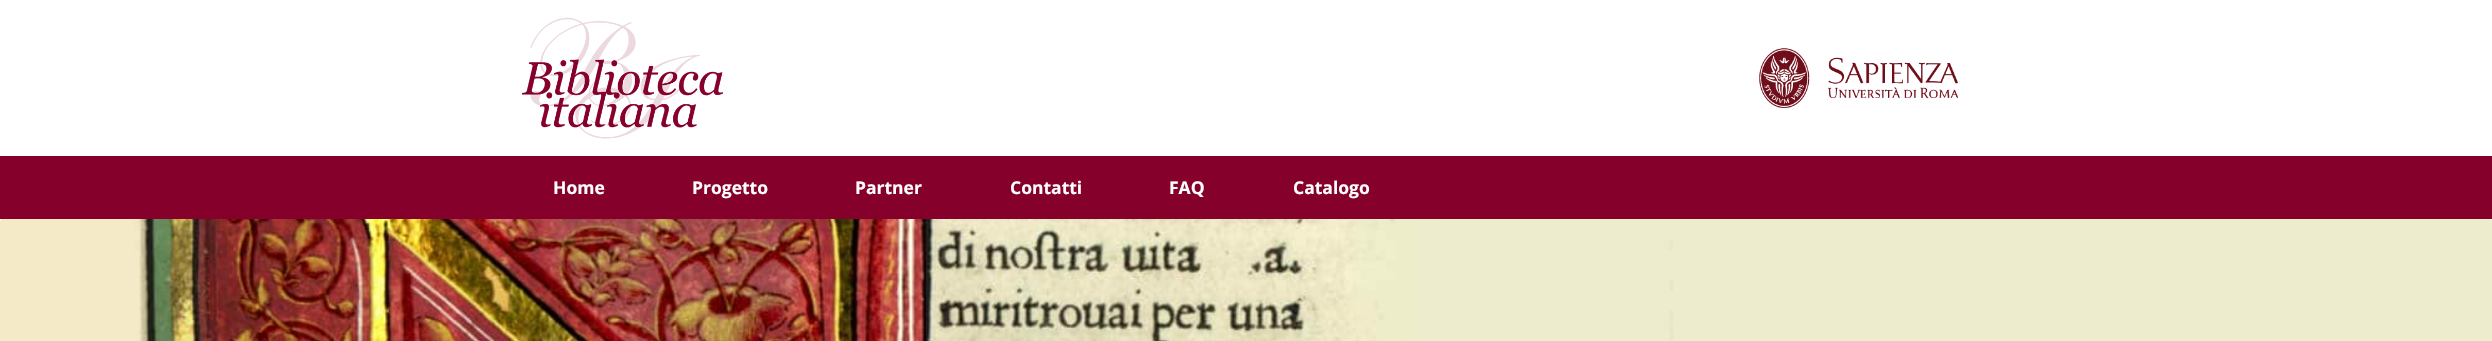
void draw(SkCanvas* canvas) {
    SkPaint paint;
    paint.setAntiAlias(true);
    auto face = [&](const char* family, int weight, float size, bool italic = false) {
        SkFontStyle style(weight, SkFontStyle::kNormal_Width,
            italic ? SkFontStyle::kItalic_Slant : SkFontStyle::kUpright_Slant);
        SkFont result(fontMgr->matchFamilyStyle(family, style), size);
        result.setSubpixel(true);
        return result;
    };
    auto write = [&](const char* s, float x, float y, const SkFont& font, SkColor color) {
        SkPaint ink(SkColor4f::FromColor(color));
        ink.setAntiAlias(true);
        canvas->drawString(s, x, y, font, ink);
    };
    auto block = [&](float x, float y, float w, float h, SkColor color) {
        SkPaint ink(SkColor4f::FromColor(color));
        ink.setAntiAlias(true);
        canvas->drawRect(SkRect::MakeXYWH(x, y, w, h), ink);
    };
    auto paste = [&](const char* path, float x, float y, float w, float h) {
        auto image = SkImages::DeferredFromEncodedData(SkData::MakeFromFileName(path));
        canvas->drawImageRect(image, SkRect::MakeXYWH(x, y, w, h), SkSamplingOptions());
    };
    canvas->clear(SK_ColorWHITE);
    paste("pic1.png", 521, 17, 202, 122);
    paste("pic2.png", 1759, 48, 199, 60);
    block(0, 156, 2492, 63, SkColorSetRGB(133, 0, 43));
    auto kFont1 = face("Open Sans", 700, 17.5f);
    write("Home", 553, 194, kFont1, SK_ColorWHITE);
    write("Progetto", 692, 194, kFont1, SK_ColorWHITE);
    write("Partner", 855, 194, kFont1, SK_ColorWHITE);
    write("Contatti", 1010, 194, kFont1, SK_ColorWHITE);
    write("FAQ", 1169, 194, kFont1, SK_ColorWHITE);
    write("Catalogo", 1293, 194, kFont1, SK_ColorWHITE);
    paste("pic3.png", 0, 219, 2492, 122);
}
